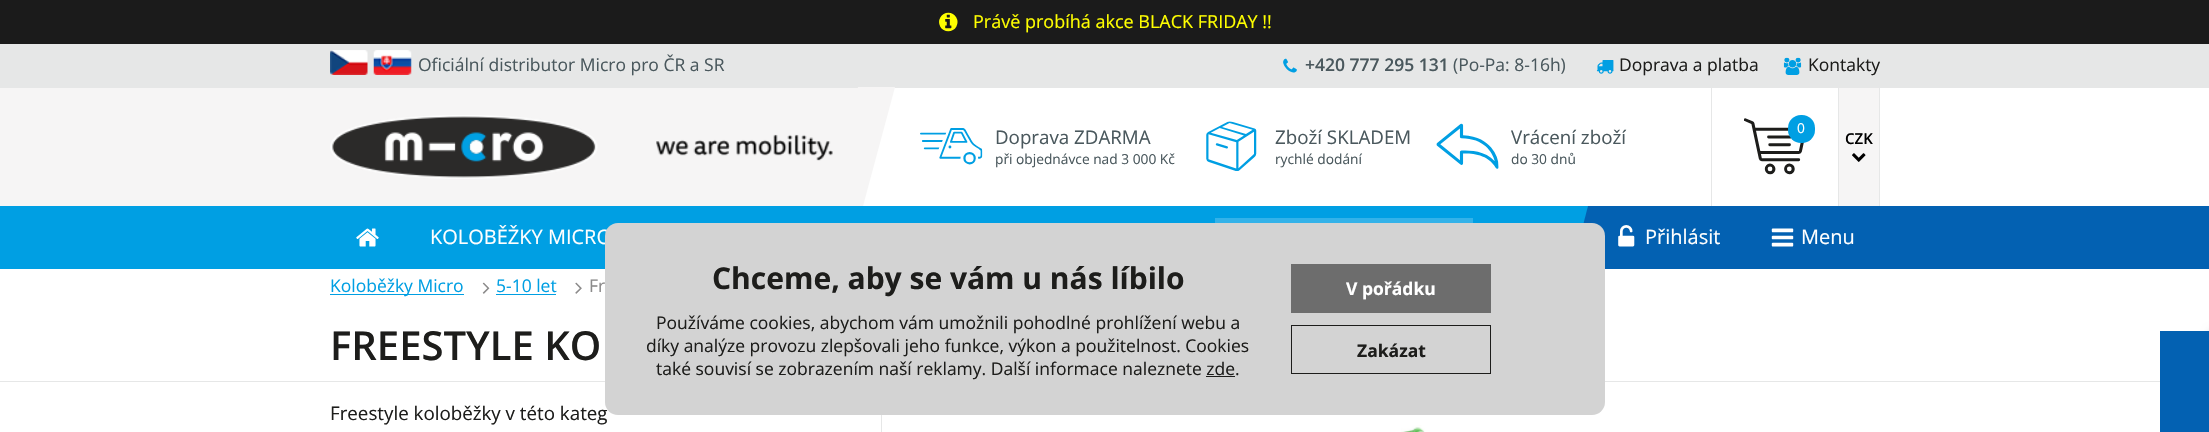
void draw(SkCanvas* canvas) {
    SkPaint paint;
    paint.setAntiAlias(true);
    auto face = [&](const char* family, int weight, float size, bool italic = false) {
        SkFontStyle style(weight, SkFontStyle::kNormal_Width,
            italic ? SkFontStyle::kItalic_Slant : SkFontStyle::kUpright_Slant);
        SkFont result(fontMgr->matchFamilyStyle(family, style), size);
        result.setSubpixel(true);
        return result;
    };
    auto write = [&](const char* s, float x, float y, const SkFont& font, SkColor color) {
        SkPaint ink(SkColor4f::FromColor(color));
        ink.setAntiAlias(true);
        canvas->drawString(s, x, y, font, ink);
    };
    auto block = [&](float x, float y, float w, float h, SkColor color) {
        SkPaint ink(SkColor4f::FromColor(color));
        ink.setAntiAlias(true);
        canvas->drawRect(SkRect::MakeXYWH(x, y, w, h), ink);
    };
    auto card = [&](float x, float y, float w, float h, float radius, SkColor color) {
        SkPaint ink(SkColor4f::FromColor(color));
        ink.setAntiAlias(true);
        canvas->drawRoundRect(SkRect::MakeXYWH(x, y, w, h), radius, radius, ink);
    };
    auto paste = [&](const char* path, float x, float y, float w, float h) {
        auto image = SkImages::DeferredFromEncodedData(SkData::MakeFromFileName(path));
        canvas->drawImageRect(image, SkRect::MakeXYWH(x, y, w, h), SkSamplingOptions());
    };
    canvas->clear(SK_ColorWHITE);
    block(0, 0, 2209, 44, SkColorSetRGB(27, 27, 27));
    paste("pic1.png", 939, 12, 19, 20);
    auto kFont1 = face("Open Sans", 400, 18);
    write("Právě probíhá akce BLACK FRIDAY !!", 973, 28, kFont1, SkColorSetRGB(255, 255, 0));
    block(0, 44, 2209, 44, SkColorSetRGB(230, 231, 231));
    paste("pic2.png", 330, 50, 38, 25);
    paste("pic3.png", 373, 50, 39, 25);
    auto kFont2 = face("Open Sans", 400, 17.5f);
    write("Oficiální distributor Micro pro ČR a SR", 418, 71, kFont2, SkColorSetRGB(74, 88, 93));
    paste("pic4.png", 1283, 58, 14, 15);
    auto kFont3 = face("Open Sans", 600, 17.5f);
    write("+420 777 295 131", 1305, 71, kFont3, SkColorSetRGB(74, 88, 93));
    write("(Po-Pa: 8-16h)", 1453, 71, kFont2, SkColorSetRGB(74, 88, 93));
    paste("pic5.png", 1596, 60, 18, 14);
    write("Doprava a platba", 1619, 71, kFont2, SkColorSetRGB(29, 29, 27));
    paste("pic6.png", 1783, 57, 19, 18);
    write("Kontakty", 1808, 71, kFont2, SkColorSetRGB(29, 29, 27));
    block(0, 88, 858, 118, SkColorSetRGB(246, 245, 245));
    paint.setColor(SkColorSetRGB(246, 245, 245));
    canvas->drawPath(SkPathBuilder().moveTo(858, 87).lineTo(895, 87).lineTo(863, 206).lineTo(826, 206).close().detach(), paint);
    paste("pic7.png", 330, 115, 268, 64);
    paste("pic8.png", 656, 134, 177, 27);
    paste("pic9.png", 920, 128, 63, 37);
    auto kFont4 = face("Open Sans", 400, 18.75f);
    write("Doprava ZDARMA", 995, 144, kFont4, SkColorSetRGB(74, 88, 93));
    auto kFont5 = face("Open Sans", 400, 13.75f);
    write("při objednávce nad 3 000 Kč", 995, 164, kFont5, SkColorSetRGB(74, 88, 93));
    paste("pic10.png", 1206, 121, 51, 50);
    write("Zboží SKLADEM", 1275, 144, kFont4, SkColorSetRGB(74, 88, 93));
    write("rychlé dodání", 1275, 164, kFont5, SkColorSetRGB(74, 88, 93));
    paste("pic11.png", 1436, 123, 63, 46);
    write("Vrácení zboží", 1511, 144, kFont4, SkColorSetRGB(74, 88, 93));
    write("do 30 dnů", 1511, 164, kFont5, SkColorSetRGB(74, 88, 93));
    block(1711, 88, 1, 118, SkColorSetRGB(230, 231, 231));
    block(1838, 88, 1, 118, SkColorSetRGB(230, 231, 231));
    paste("pic12.png", 1744, 118, 60, 57);
    card(1788, 115, 27, 28, 13, SkColorSetRGB(0, 159, 227));
    write("0", 1797, 133, kFont5, SK_ColorWHITE);
    block(1839, 88, 40, 118, SkColorSetRGB(246, 245, 245));
    block(1879, 88, 1, 118, SkColorSetRGB(230, 231, 231));
    auto kFont6 = face("Open Sans", 600, 15);
    write("CZK", 1845, 144, kFont6, SK_ColorBLACK);
    paste("pic13.png", 1852, 153, 14, 9);
    block(0, 206, 1588, 63, SkColorSetRGB(0, 159, 227));
    block(1215, 218, 258, 5, SkColorSetRGB(51, 178, 233));
    paste("pic14.png", 356, 228, 23, 19);
    auto kFont7 = face("Open Sans", 400, 20);
    write("KOLOBĚŽKY MICRO", 430, 244, kFont7, SK_ColorWHITE);
    block(1605, 206, 604, 63, SkColorSetRGB(3, 97, 178));
    paint.setColor(SkColorSetRGB(3, 97, 178));
    canvas->drawPath(SkPathBuilder().moveTo(1588, 206).lineTo(1626, 206).lineTo(1609, 268).lineTo(1572, 268).close().detach(), paint);
    paste("pic15.png", 1618, 225, 17, 22);
    write("Přihlásit", 1645, 244, kFont7, SK_ColorWHITE);
    paste("pic16.png", 1771, 228, 23, 19);
    write("Menu", 1801, 244, kFont7, SK_ColorWHITE);
    block(0, 381, 2160, 1, SkColorSetRGB(230, 231, 231));
    block(330, 294, 134, 1, SkColorSetRGB(0, 159, 227));
    write("Koloběžky Micro", 330, 292, kFont2, SkColorSetRGB(0, 159, 227));
    paste("pic17.png", 482, 282, 8, 12);
    write("5-10 let", 496, 292, kFont2, SkColorSetRGB(0, 159, 227));
    block(496, 294, 60, 1, SkColorSetRGB(0, 159, 227));
    paste("pic18.png", 575, 282, 7, 12);
    write("Fr", 589, 292, kFont2, SkColorSetRGB(140, 139, 139));
    auto kFont8 = face("Open Sans", 600, 40);
    write("FREESTYLE KO", 330, 360, kFont8, SkColorSetRGB(29, 29, 27));
    write("Freestyle koloběžky v této kateg", 330, 420, kFont4, SkColorSetRGB(29, 29, 27));
    block(881, 408, 1, 24, SkColorSetRGB(230, 231, 231));
    paste("pic19.png", 1401, 425, 24, 7);
    paint.setColor(SkColorSetARGB(51, 0, 0, 0));
    paint.setMaskFilter(SkMaskFilter::MakeBlur(kNormal_SkBlurStyle, 4.5f));
    canvas->drawRect(SkRect::MakeXYWH(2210, 331, 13, 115), paint);
    paint.setMaskFilter(nullptr);
    block(2160, 331, 49, 101, SkColorSetRGB(3, 97, 178));
    card(605, 223, 1000, 192, 13, SkColorSetRGB(211, 211, 211));
    auto kFont9 = face("Open Sans", 700, 30);
    write("Chceme, aby se vám u nás líbilo", 712, 289, kFont9, SkColorSetRGB(29, 29, 27));
    write("Používáme cookies, abychom vám umožnili pohodlné prohlížení webu a", 656, 329, kFont2, SkColorSetRGB(29, 29, 27));
    write("díky analýze provozu zlepšovali jeho funkce, výkon a použitelnost. Cookies", 646, 352, kFont2, SkColorSetRGB(29, 29, 27));
    write("také souvisí se zobrazením naší reklamy. Další informace naleznete zde.", 656, 375, kFont2, SkColorSetRGB(29, 29, 27));
    block(1206, 376, 29, 1, SkColorSetRGB(29, 29, 27));
    block(1291, 264, 200, 49, SkColorSetRGB(109, 109, 109));
    auto kFont10 = face("Open Sans", 700, 17.5f);
    write("V pořádku", 1346, 295, kFont10, SK_ColorWHITE);
    paint.setStyle(SkPaint::kStroke_Style);
    paint.setStrokeWidth(1);
    paint.setColor(SkColorSetRGB(29, 29, 27));
    canvas->drawRect(SkRect::MakeXYWH(1291.5f, 325.5f, 199, 48), paint);
    write("Zakázat", 1357, 357, kFont10, SkColorSetRGB(29, 29, 27));
}
